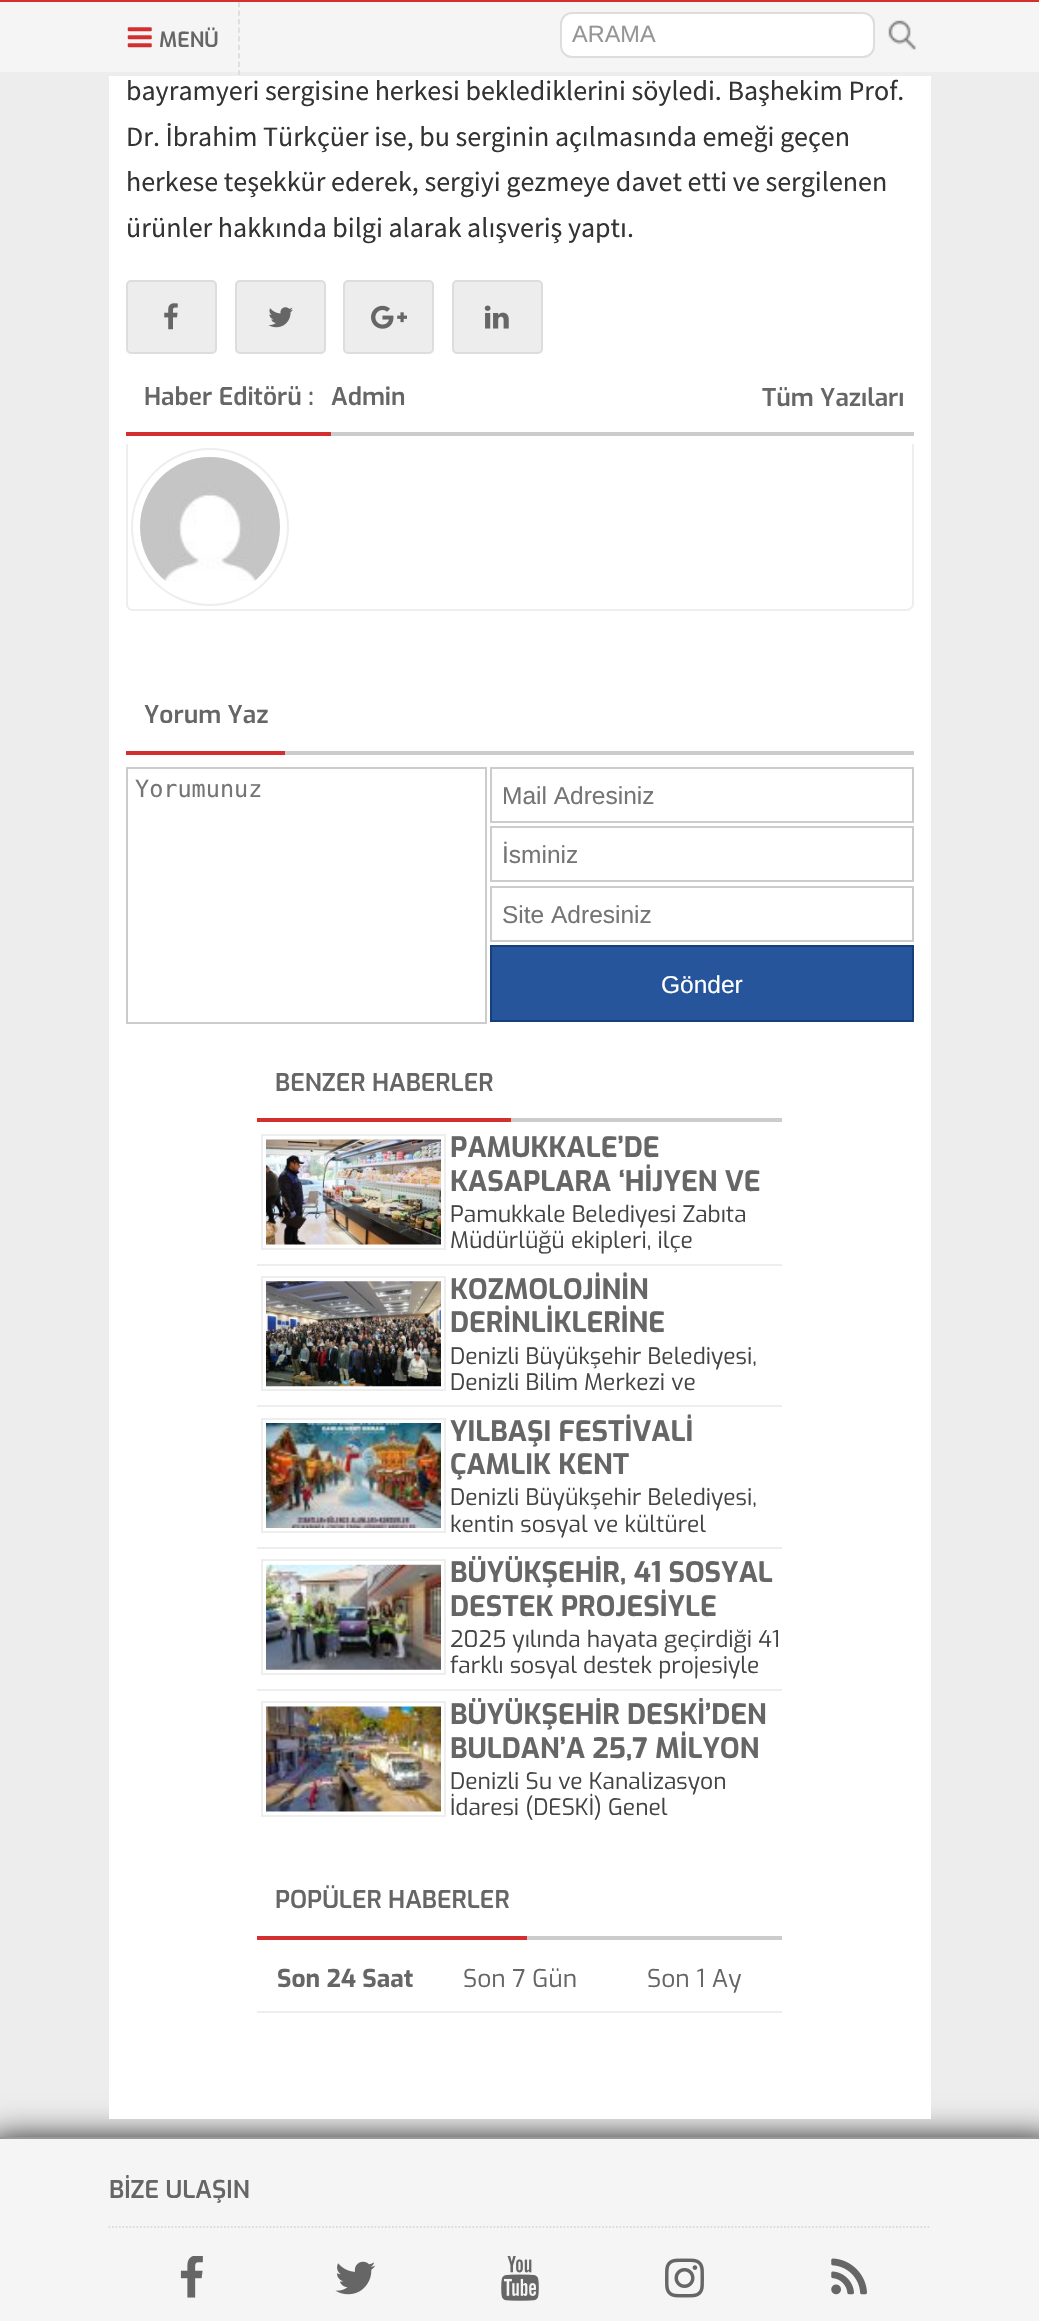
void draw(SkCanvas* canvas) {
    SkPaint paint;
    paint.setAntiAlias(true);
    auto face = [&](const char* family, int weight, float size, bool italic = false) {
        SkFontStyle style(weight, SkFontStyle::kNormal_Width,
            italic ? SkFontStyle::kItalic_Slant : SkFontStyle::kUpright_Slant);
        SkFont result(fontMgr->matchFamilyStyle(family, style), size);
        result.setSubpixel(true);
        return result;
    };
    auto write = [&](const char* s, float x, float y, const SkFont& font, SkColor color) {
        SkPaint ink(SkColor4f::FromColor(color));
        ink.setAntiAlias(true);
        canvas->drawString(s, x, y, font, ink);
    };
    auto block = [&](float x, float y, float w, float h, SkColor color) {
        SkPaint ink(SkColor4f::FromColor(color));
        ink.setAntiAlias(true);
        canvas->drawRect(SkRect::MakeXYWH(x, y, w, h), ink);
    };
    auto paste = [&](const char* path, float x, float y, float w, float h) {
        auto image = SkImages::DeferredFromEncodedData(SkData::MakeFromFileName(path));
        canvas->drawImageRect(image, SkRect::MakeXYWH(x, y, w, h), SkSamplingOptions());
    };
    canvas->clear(SkColorSetRGB(237, 237, 237));
    block(0, 2, 1039, 70, SkColorSetRGB(245, 245, 245));
    block(0, 0, 1039, 2, SkColorSetRGB(211, 47, 47));
    paint.setStyle(SkPaint::kStroke_Style);
    paint.setStrokeWidth(1.8f);
    paint.setColor(SkColorSetRGB(221, 221, 221));
    paint.setPathEffect(SkDashPathEffect::Make({{5.25f, 3.29f}}, 0));
    canvas->drawPath(SkPathBuilder().moveTo(239, 2).lineTo(239, 75).detach(), paint);
    paint.setPathEffect(nullptr);
    paste("pic1.png", 127, 27, 25, 21);
    auto kFont1 = face("Exo", 600, 21);
    write("MENÜ", 159, 47, kFont1, SkColorSetRGB(102, 102, 102));
    paint.setStyle(SkPaint::kFill_Style);
    paint.setColor(SK_ColorWHITE);
    canvas->drawRoundRect(SkRect::MakeXYWH(561, 13, 313, 44), 11, 11, paint);
    paint.setStyle(SkPaint::kStroke_Style);
    paint.setStrokeWidth(2);
    paint.setColor(SkColorSetRGB(221, 221, 221));
    canvas->drawRoundRect(SkRect::MakeXYWH(561, 13, 313, 44), 11, 11, paint);
    auto kFont2 = face("Liberation Sans", 400, 23.5f);
    write("ARAMA", 572, 42, kFont2, SkColorSetRGB(149, 149, 149));
    paste("pic2.png", 888, 20, 28, 30);
    paint.setStyle(SkPaint::kFill_Style);
    paint.setColor(SK_ColorBLACK);
    paint.setMaskFilter(SkMaskFilter::MakeBlur(kNormal_SkBlurStyle, 16.5f));
    canvas->drawRect(SkRect::MakeXYWH(-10, 2140, 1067, 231), paint);
    paint.setMaskFilter(nullptr);
    block(109, 76, 822, 2043, SK_ColorWHITE);
    auto kFont3 = face("Source Sans Pro", 400, 28);
    write("bayramyeri sergisine herkesi beklediklerini söyledi. Başhekim Prof.", 126, 100, kFont3, SkColorSetRGB(51, 51, 51));
    write("Dr. İbrahim Türkçüer ise, bu serginin açılmasında emeği geçen", 126, 146, kFont3, SkColorSetRGB(51, 51, 51));
    write("herkese teşekkür ederek, sergiyi gezmeye davet etti ve sergilenen", 126, 191, kFont3, SkColorSetRGB(51, 51, 51));
    write("ürünler hakkında bilgi alarak alışveriş yaptı.", 126, 237, kFont3, SkColorSetRGB(51, 51, 51));
    paint.setColor(SkColorSetRGB(237, 237, 237));
    canvas->drawRoundRect(SkRect::MakeXYWH(127, 281, 89, 72), 4, 4, paint);
    paint.setStyle(SkPaint::kStroke_Style);
    paint.setColor(SkColorSetRGB(221, 221, 221));
    canvas->drawRoundRect(SkRect::MakeXYWH(127, 281, 89, 72), 4, 4, paint);
    paste("pic3.png", 164, 303, 14, 27);
    paint.setStyle(SkPaint::kFill_Style);
    paint.setColor(SkColorSetRGB(237, 237, 237));
    canvas->drawRoundRect(SkRect::MakeXYWH(236, 281, 89, 72), 4, 4, paint);
    paint.setStyle(SkPaint::kStroke_Style);
    paint.setColor(SkColorSetRGB(221, 221, 221));
    canvas->drawRoundRect(SkRect::MakeXYWH(236, 281, 89, 72), 4, 4, paint);
    paste("pic4.png", 268, 307, 25, 21);
    paint.setStyle(SkPaint::kFill_Style);
    paint.setColor(SkColorSetRGB(237, 237, 237));
    canvas->drawRoundRect(SkRect::MakeXYWH(344, 281, 89, 72), 4, 4, paint);
    paint.setStyle(SkPaint::kStroke_Style);
    paint.setColor(SkColorSetRGB(221, 221, 221));
    canvas->drawRoundRect(SkRect::MakeXYWH(344, 281, 89, 72), 4, 4, paint);
    paste("pic5.png", 371, 305, 36, 24);
    paint.setStyle(SkPaint::kFill_Style);
    paint.setColor(SkColorSetRGB(237, 237, 237));
    canvas->drawRoundRect(SkRect::MakeXYWH(453, 281, 89, 72), 4, 4, paint);
    paint.setStyle(SkPaint::kStroke_Style);
    paint.setColor(SkColorSetRGB(221, 221, 221));
    canvas->drawRoundRect(SkRect::MakeXYWH(453, 281, 89, 72), 4, 4, paint);
    paste("pic6.png", 484, 305, 25, 24);
    block(331, 432, 583, 4, SkColorSetRGB(204, 204, 204));
    block(126, 432, 205, 4, SkColorSetRGB(211, 47, 47));
    auto kFont4 = face("Exo", 600, 24.5f);
    write("Haber Editörü :", 144, 405, kFont4, SkColorSetRGB(102, 102, 102));
    write("Admin", 331, 405, kFont4, SkColorSetRGB(102, 102, 102));
    write("Tüm Yazıları", 762, 406, kFont4, SkColorSetRGB(102, 102, 102));
    paint.setStyle(SkPaint::kFill_Style);
    paint.setColor(SkColorSetRGB(238, 238, 238));
    canvas->drawPath(SkPathBuilder(SkPathFillType::kEvenOdd).moveTo(126, 444).lineTo(914, 444).lineTo(914, 604).cubicTo(914, 608, 910, 611, 906, 611).lineTo(133, 611).cubicTo(129, 611, 126, 608, 126, 604).close().moveTo(128, 444).lineTo(912, 444).lineTo(912, 604).cubicTo(912, 607, 909, 609, 906, 609).lineTo(133, 609).cubicTo(130, 609, 128, 607, 128, 604).close().detach(), paint);
    paint.setStyle(SkPaint::kStroke_Style);
    canvas->drawCircle(210, 527, 78, paint);
    paste("pic7.png", 140, 457, 140, 124);
    block(285, 751, 629, 4, SkColorSetRGB(204, 204, 204));
    block(126, 751, 159, 4, SkColorSetRGB(211, 47, 47));
    write("Yorum Yaz", 144, 723, kFont4, SkColorSetRGB(102, 102, 102));
    paint.setColor(SkColorSetRGB(204, 204, 204));
    canvas->drawRect(SkRect::MakeXYWH(127, 768, 359, 255), paint);
    auto kFont5 = face("DejaVu Sans Mono", 400, 23.5f);
    write("Yorumunuz", 135, 797, kFont5, SkColorSetRGB(117, 117, 117));
    canvas->drawRect(SkRect::MakeXYWH(491, 768, 422, 54), paint);
    auto kFont6 = face("Liberation Sans", 400, 24.5f);
    write("Mail Adresiniz", 502, 804, kFont6, SkColorSetRGB(117, 117, 117));
    canvas->drawRect(SkRect::MakeXYWH(491, 827, 422, 54), paint);
    write("İsminiz", 502, 863, kFont6, SkColorSetRGB(117, 117, 117));
    canvas->drawRect(SkRect::MakeXYWH(491, 887, 422, 54), paint);
    write("Site Adresiniz", 502, 923, kFont6, SkColorSetRGB(117, 117, 117));
    paint.setStyle(SkPaint::kFill_Style);
    paint.setColor(SkColorSetRGB(39, 85, 155));
    canvas->drawRect(SkRect::MakeXYWH(491, 946, 422, 75), paint);
    paint.setStyle(SkPaint::kStroke_Style);
    paint.setColor(SkColorSetRGB(22, 62, 123));
    canvas->drawRect(SkRect::MakeXYWH(491, 946, 422, 75), paint);
    write("Gönder", 661, 993, kFont6, SK_ColorWHITE);
    block(511, 1118, 271, 4, SkColorSetRGB(204, 204, 204));
    block(257, 1118, 254, 4, SkColorSetRGB(211, 47, 47));
    write("BENZER HABERLER", 275, 1091, kFont4, SkColorSetRGB(102, 102, 102));
    block(257, 1264, 525, 2, SkColorSetRGB(238, 238, 238));
    paint.setColor(SkColorSetRGB(238, 238, 238));
    canvas->drawRect(SkRect::MakeXYWH(262, 1135, 183, 114), paint);
    paste("pic8.png", 266, 1139, 175, 106);
    auto kFont7 = face("Exo", 700, 28);
    write("PAMUKKALE’DE", 450, 1157, kFont7, SkColorSetRGB(102, 102, 102));
    write("KASAPLARA ‘HİJYEN VE", 450, 1191, kFont7, SkColorSetRGB(102, 102, 102));
    auto kFont8 = face("Exo", 400, 22.75f);
    write("Pamukkale Belediyesi Zabıta", 450, 1222, kFont8, SkColorSetRGB(68, 68, 68));
    write("Müdürlüğü ekipleri, ilçe", 450, 1248, kFont8, SkColorSetRGB(68, 68, 68));
    block(257, 1405, 525, 2, SkColorSetRGB(238, 238, 238));
    canvas->drawRect(SkRect::MakeXYWH(262, 1277, 183, 113), paint);
    paste("pic9.png", 266, 1281, 175, 106);
    write("KOZMOLOJİNİN", 450, 1299, kFont7, SkColorSetRGB(102, 102, 102));
    write("DERİNLİKLERİNE", 450, 1332, kFont7, SkColorSetRGB(102, 102, 102));
    write("Denizli Büyükşehir Belediyesi,", 450, 1364, kFont8, SkColorSetRGB(68, 68, 68));
    write("Denizli Bilim Merkezi ve", 450, 1390, kFont8, SkColorSetRGB(68, 68, 68));
    block(257, 1547, 525, 2, SkColorSetRGB(238, 238, 238));
    canvas->drawRect(SkRect::MakeXYWH(262, 1419, 183, 113), paint);
    paste("pic10.png", 266, 1423, 175, 105);
    write("YILBAŞI FESTİVALİ", 450, 1441, kFont7, SkColorSetRGB(102, 102, 102));
    write("ÇAMLIK KENT", 450, 1474, kFont7, SkColorSetRGB(102, 102, 102));
    write("Denizli Büyükşehir Belediyesi,", 450, 1505, kFont8, SkColorSetRGB(68, 68, 68));
    write("kentin sosyal ve kültürel", 450, 1532, kFont8, SkColorSetRGB(68, 68, 68));
    block(257, 1689, 525, 2, SkColorSetRGB(238, 238, 238));
    canvas->drawRect(SkRect::MakeXYWH(262, 1560, 183, 114), paint);
    paste("pic11.png", 266, 1564, 175, 106);
    canvas->save();
    canvas->clipRect(SkRect::MakeXYWH(450, 1556, 332, 66));
    write("BÜYÜKŞEHİR, 41 SOSYAL", 450, 1582, kFont7, SkColorSetRGB(102, 102, 102));
    canvas->restore();
    write("DESTEK PROJESİYLE", 450, 1616, kFont7, SkColorSetRGB(102, 102, 102));
    write("2025 yılında hayata geçirdiği 41", 450, 1647, kFont8, SkColorSetRGB(68, 68, 68));
    write("farklı sosyal destek projesiyle", 450, 1673, kFont8, SkColorSetRGB(68, 68, 68));
    canvas->drawRect(SkRect::MakeXYWH(262, 1702, 183, 114), paint);
    paste("pic12.png", 266, 1706, 175, 106);
    canvas->save();
    canvas->clipRect(SkRect::MakeXYWH(450, 1698, 332, 66));
    write("BÜYÜKŞEHİR DESKİ’DEN", 450, 1724, kFont7, SkColorSetRGB(102, 102, 102));
    canvas->restore();
    write("BULDAN’A 25,7 MİLYON", 450, 1758, kFont7, SkColorSetRGB(102, 102, 102));
    write("Denizli Su ve Kanalizasyon", 450, 1789, kFont8, SkColorSetRGB(68, 68, 68));
    write("İdaresi (DESKİ) Genel", 450, 1815, kFont8, SkColorSetRGB(68, 68, 68));
    block(527, 1936, 255, 4, SkColorSetRGB(204, 204, 204));
    block(257, 1936, 270, 4, SkColorSetRGB(211, 47, 47));
    write("POPÜLER HABERLER", 275, 1908, kFont4, SkColorSetRGB(102, 102, 102));
    block(257, 2011, 525, 2, SkColorSetRGB(238, 238, 238));
    auto kFont9 = face("Exo", 700, 24.5f);
    write("Son 24 Saat", 277, 1987, kFont9, SkColorSetRGB(102, 102, 102));
    auto kFont10 = face("Exo", 400, 24.5f);
    write("Son 7 Gün", 463, 1987, kFont10, SkColorSetRGB(102, 102, 102));
    write("Son 1 Ay", 647, 1987, kFont10, SkColorSetRGB(102, 102, 102));
    block(0, 2139, 1039, 182, SkColorSetRGB(245, 245, 245));
    block(0, 2137, 1039, 2, SkColorSetRGB(153, 153, 153));
    paint.setStrokeWidth(1.8f);
    paint.setColor(SkColorSetRGB(221, 221, 221));
    paint.setPathEffect(SkDashPathEffect::Make({{1.75f, 1.75f}}, 0));
    canvas->drawPath(SkPathBuilder().moveTo(108.5f, 2227).lineTo(931, 2227).detach(), paint);
    paint.setPathEffect(nullptr);
    write("BİZE ULAŞIN", 109, 2198, kFont4, SkColorSetRGB(102, 102, 102));
    paste("pic13.png", 180, 2256, 23, 42);
    paste("pic14.png", 335, 2261, 41, 34);
    paste("pic15.png", 501, 2256, 38, 45);
    paste("pic16.png", 665, 2258, 39, 40);
    paste("pic17.png", 831, 2258, 36, 37);
}
